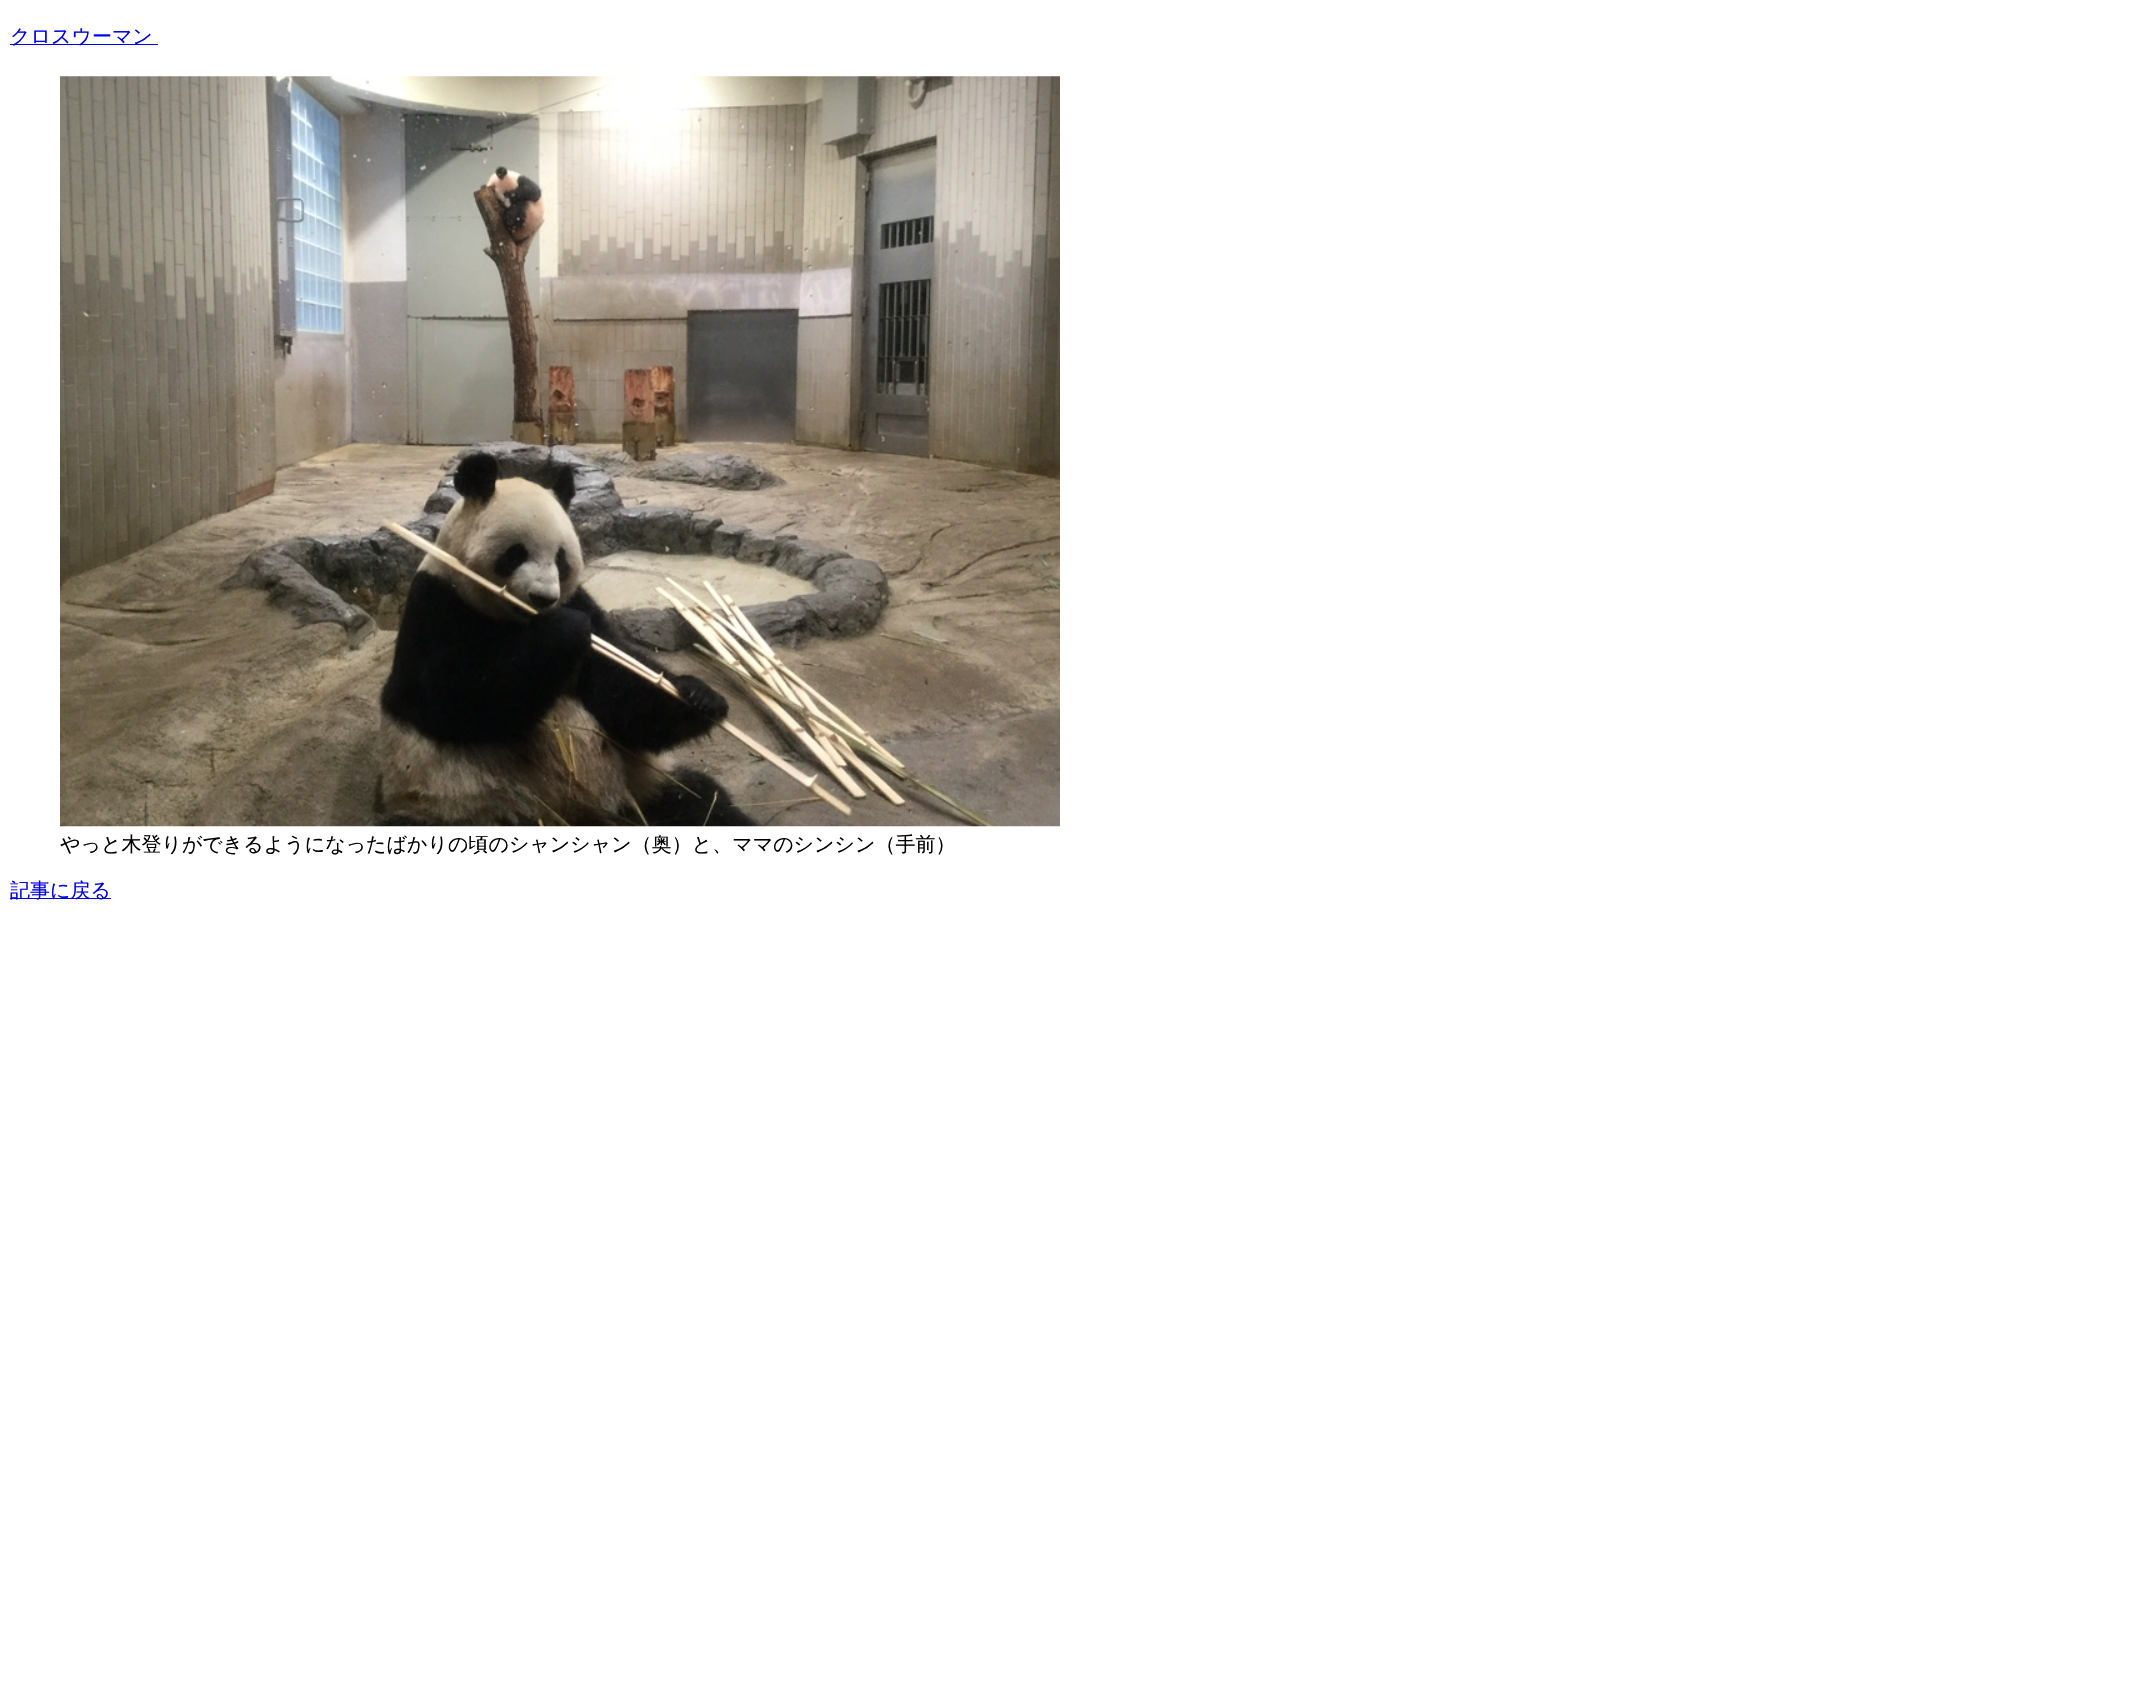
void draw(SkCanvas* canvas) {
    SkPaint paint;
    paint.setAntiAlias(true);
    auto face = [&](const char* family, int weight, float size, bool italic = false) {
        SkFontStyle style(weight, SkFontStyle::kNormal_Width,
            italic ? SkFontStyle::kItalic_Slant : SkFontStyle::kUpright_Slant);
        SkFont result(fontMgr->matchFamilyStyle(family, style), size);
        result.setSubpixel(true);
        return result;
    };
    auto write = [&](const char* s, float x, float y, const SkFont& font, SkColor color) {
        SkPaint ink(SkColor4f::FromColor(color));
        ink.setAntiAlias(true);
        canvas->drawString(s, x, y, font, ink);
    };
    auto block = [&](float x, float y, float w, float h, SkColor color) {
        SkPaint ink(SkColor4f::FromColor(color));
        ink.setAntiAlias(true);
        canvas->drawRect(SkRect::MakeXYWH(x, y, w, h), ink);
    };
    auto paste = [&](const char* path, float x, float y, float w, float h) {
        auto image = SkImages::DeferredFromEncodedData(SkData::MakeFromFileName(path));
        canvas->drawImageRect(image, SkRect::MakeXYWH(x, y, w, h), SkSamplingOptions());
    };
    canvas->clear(SK_ColorWHITE);
    block(10, 44, 148, 1, SkColorSetRGB(0, 0, 238));
    auto kFont1 = face("WenQuanYi Zen Hei", 500, 20);
    write("クロスウーマン", 10, 43, kFont1, SkColorSetRGB(0, 0, 238));
    paste("pic1.png", 60, 76, 1000, 751);
    write("やっと木登りができるようになったばかりの頃のシャンシャン（奥）と、ママのシンシン（手前）", 60, 851, kFont1, SK_ColorBLACK);
    block(10, 898, 101, 1, SkColorSetRGB(0, 0, 238));
    write("記事に戻る", 10, 897, kFont1, SkColorSetRGB(0, 0, 238));
}
